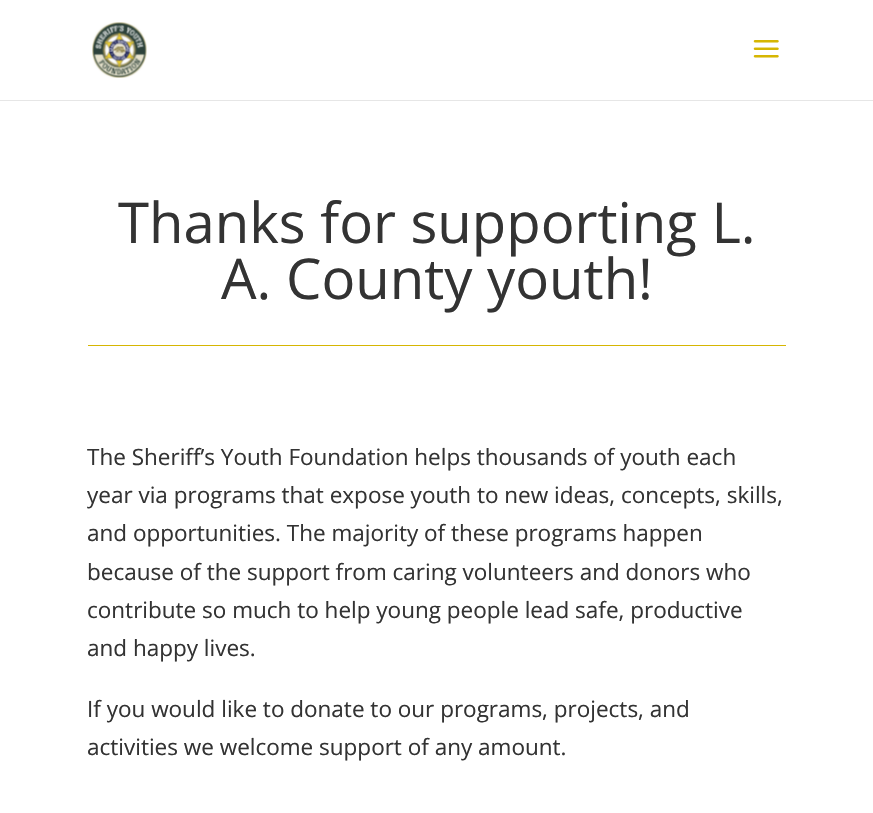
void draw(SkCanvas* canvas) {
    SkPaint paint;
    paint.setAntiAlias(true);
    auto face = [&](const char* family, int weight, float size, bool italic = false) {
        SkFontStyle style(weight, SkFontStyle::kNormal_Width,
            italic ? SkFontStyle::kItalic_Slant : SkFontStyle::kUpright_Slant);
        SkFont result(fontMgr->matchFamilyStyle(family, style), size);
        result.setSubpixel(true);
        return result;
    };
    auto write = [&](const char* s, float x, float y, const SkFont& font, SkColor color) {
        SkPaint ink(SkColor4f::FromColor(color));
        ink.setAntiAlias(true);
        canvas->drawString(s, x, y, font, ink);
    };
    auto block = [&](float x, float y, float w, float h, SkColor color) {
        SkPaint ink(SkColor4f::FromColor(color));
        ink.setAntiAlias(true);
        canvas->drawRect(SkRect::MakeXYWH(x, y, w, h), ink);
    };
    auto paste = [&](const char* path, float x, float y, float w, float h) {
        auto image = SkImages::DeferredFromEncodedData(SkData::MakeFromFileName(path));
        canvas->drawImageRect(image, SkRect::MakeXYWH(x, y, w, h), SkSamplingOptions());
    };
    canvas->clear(SK_ColorWHITE);
    paint.setColor(SkColorSetRGB(230, 230, 230));
    canvas->drawPath(SkPathBuilder().moveTo(0, 100).lineTo(0, 101).lineTo(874, 101).lineTo(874, 1).lineTo(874, 100).close().detach(), paint);
    paste("pic1.png", 92, 22, 55, 56);
    paste("pic2.png", 753, 40, 26, 18);
    auto kFont1 = face("Open Sans", 400, 56.25f);
    write("Thanks for supporting L.", 118, 243, kFont1, SkColorSetRGB(51, 51, 51));
    write("A. County youth!", 221, 299, kFont1, SkColorSetRGB(51, 51, 51));
    block(88, 345, 698, 1, SkColorSetRGB(214, 182, 2));
    auto kFont2 = face("Open Sans", 400, 22.5f);
    write("The Sheriff’s Youth Foundation helps thousands of youth each", 87, 465, kFont2, SkColorSetRGB(51, 51, 51));
    write("year via programs that expose youth to new ideas, concepts, skills,", 87, 503, kFont2, SkColorSetRGB(51, 51, 51));
    write("and opportunities. The majority of these programs happen", 87, 541, kFont2, SkColorSetRGB(51, 51, 51));
    write("because of the support from caring volunteers and donors who", 87, 580, kFont2, SkColorSetRGB(51, 51, 51));
    write("contribute so much to help young people lead safe, productive", 87, 618, kFont2, SkColorSetRGB(51, 51, 51));
    write("and happy lives.", 87, 656, kFont2, SkColorSetRGB(51, 51, 51));
    write("If you would like to donate to our programs, projects, and", 87, 717, kFont2, SkColorSetRGB(51, 51, 51));
    write("activities we welcome support of any amount.", 87, 755, kFont2, SkColorSetRGB(51, 51, 51));
}
